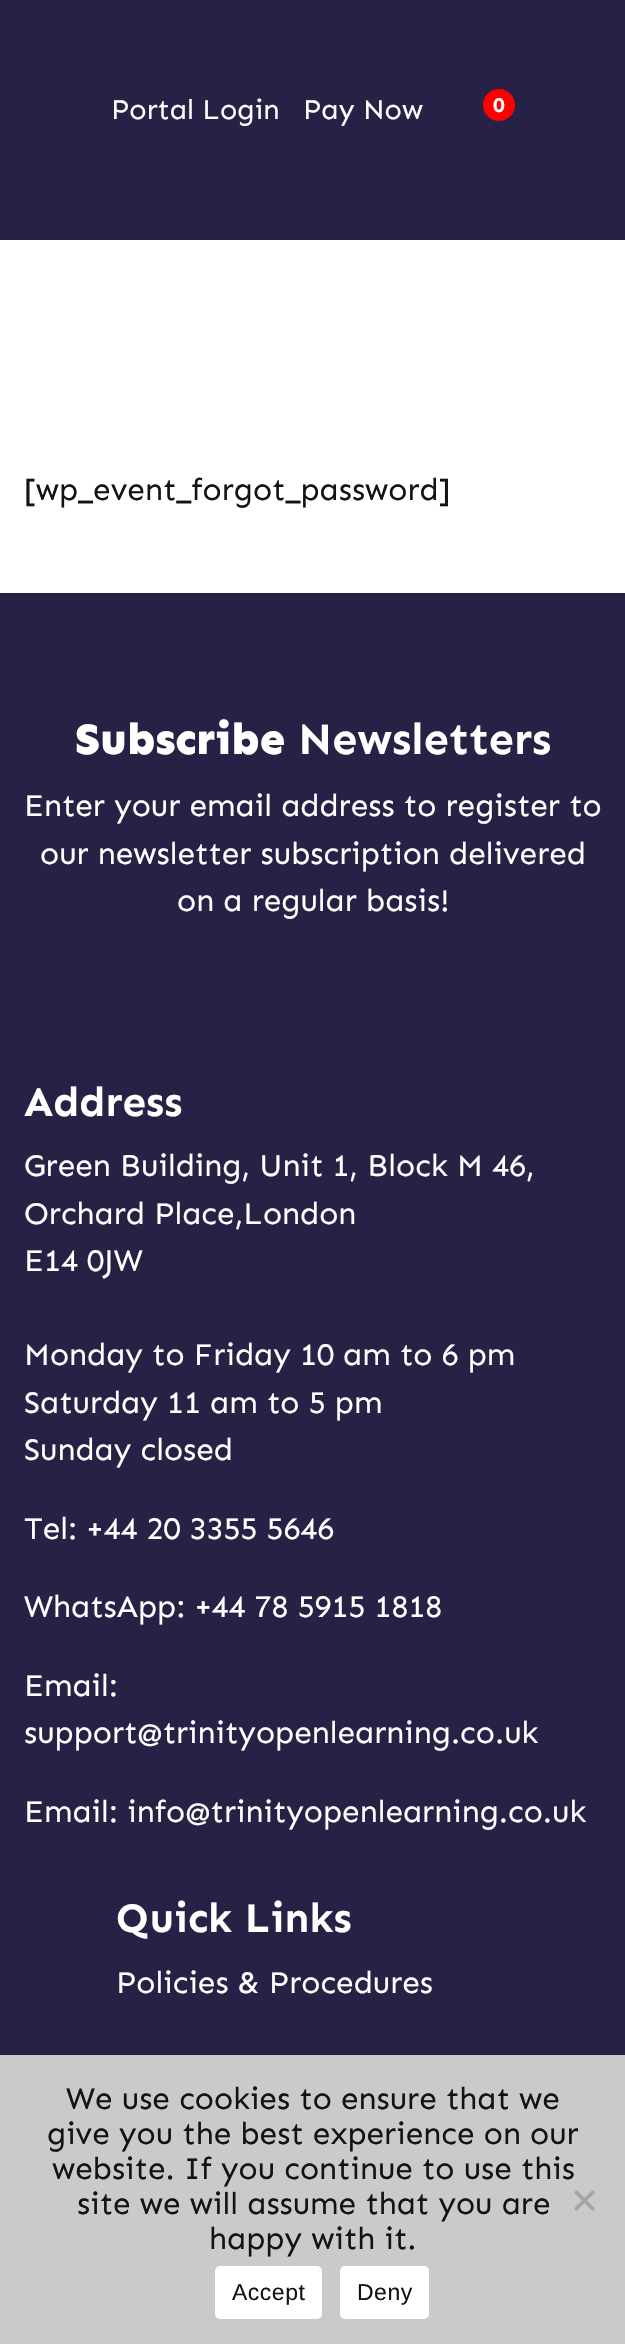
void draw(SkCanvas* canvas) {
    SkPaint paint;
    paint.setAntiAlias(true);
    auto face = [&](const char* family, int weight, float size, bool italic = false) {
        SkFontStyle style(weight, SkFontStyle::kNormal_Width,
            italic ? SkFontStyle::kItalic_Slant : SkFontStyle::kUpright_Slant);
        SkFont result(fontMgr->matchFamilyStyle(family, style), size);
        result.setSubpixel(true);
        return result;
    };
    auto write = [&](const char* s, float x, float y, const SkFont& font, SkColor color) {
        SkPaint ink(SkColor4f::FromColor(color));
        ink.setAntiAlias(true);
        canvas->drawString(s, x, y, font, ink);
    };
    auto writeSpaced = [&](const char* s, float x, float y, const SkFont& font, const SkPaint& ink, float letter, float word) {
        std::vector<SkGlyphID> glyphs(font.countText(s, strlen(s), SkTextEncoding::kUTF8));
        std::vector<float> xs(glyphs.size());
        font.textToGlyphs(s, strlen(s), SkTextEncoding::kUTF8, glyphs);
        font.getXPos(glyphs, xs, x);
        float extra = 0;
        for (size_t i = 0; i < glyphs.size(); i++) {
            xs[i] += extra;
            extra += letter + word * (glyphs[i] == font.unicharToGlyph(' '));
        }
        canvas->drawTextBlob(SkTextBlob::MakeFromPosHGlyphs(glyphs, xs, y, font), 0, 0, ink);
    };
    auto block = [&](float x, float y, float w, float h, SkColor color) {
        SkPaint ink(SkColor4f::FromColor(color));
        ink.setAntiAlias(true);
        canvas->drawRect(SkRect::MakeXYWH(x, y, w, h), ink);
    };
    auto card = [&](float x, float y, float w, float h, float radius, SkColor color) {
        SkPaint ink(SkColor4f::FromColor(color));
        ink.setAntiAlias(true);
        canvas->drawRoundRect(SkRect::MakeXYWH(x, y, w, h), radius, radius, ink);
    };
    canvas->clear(SK_ColorWHITE);
    block(0, 0, 625, 240, SkColorSetRGB(39, 33, 69));
    auto kFont1 = face("Sen", 400, 28.5f);
    write("Portal Login", 111, 119, kFont1, SK_ColorWHITE);
    write("Pay Now", 303, 119, kFont1, SK_ColorWHITE);
    paint.setColor(SkColorSetRGB(255, 0, 0));
    canvas->drawCircle(499, 105, 16, paint);
    auto kFont2 = face("Sen", 700, 21);
    write("0", 493, 112, kFont2, SK_ColorWHITE);
    auto kFont3 = face("Sen", 400, 31.5f);
    write("[wp_event_forgot_password]", 24, 500, kFont3, SkColorSetRGB(19, 19, 19));
    block(0, 593, 625, 1751, SkColorSetRGB(39, 33, 69));
    auto kFont4 = face("Sen", 800, 44.75f);
    write("Subscribe", 75, 754, kFont4, SK_ColorWHITE);
    auto kFont5 = face("Sen", 700, 44.75f);
    write("Newsletters", 298, 754, kFont5, SK_ColorWHITE);
    write("Enter your email address to register to", 24, 816, kFont3, SK_ColorWHITE);
    write("our newsletter subscription delivered", 40, 864, kFont3, SK_ColorWHITE);
    write("on a regular basis!", 177, 911, kFont3, SK_ColorWHITE);
    auto kFont6 = face("Sen", 700, 42);
    write("Address", 24, 1116, kFont6, SK_ColorWHITE);
    write("Green Building, Unit 1, Block M 46,", 24, 1176, kFont3, SK_ColorWHITE);
    write("Orchard Place,London", 24, 1224, kFont3, SK_ColorWHITE);
    write("E14 0JW", 24, 1271, kFont3, SK_ColorWHITE);
    write("Monday to Friday 10 am to 6 pm", 24, 1365, kFont3, SK_ColorWHITE);
    write("Saturday 11 am to 5 pm", 24, 1413, kFont3, SK_ColorWHITE);
    write("Sunday closed", 24, 1460, kFont3, SK_ColorWHITE);
    write("Tel: +44 20 3355 5646", 24, 1539, kFont3, SK_ColorWHITE);
    write("WhatsApp: +44 78 5915 1818", 24, 1617, kFont3, SK_ColorWHITE);
    write("Email:", 24, 1696, kFont3, SK_ColorWHITE);
    write("support@trinityopenlearning.co.uk", 24, 1743, kFont3, SK_ColorWHITE);
    write("Email: info@trinityopenlearning.co.uk", 24, 1822, kFont3, SK_ColorWHITE);
    write("Quick Links", 116, 1932, kFont6, SK_ColorWHITE);
    write("Policies & Procedures", 116, 1993, kFont3, SK_ColorWHITE);
    block(0, 2055, 625, 289, SkColorSetARGB(237, 214, 214, 214));
    write("We use cookies to ensure that we", 66, 2109, kFont3, SkColorSetRGB(19, 19, 19));
    write("give you the best experience on our", 47, 2144, kFont3, SkColorSetRGB(19, 19, 19));
    write("website. If you continue to use this", 52, 2179, kFont3, SkColorSetRGB(19, 19, 19));
    write("site we will assume that you are", 77, 2214, kFont3, SkColorSetRGB(19, 19, 19));
    write("happy with it.", 209, 2249, kFont3, SkColorSetRGB(19, 19, 19));
    paint.setColor(SkColorSetRGB(165, 165, 166));
    canvas->drawPath(SkPathBuilder().moveTo(592.5f, 2190).lineTo(595, 2192.5f).lineTo(576.5f, 2211).lineTo(574, 2208.5f).close().detach(), paint);
    canvas->drawPath(SkPathBuilder().moveTo(574, 2192.5f).lineTo(576.5f, 2190).lineTo(595, 2208.5f).lineTo(592.5f, 2211).close().detach(), paint);
    card(215, 2266, 107, 53, 5, SK_ColorWHITE);
    auto kFont7 = face("Liberation Sans", 400, 23);
    paint.setColor(SkColorSetRGB(19, 19, 19));
    writeSpaced("Accept", 232, 2300, kFont7, paint, 0.5f, 0);
    card(340, 2266, 89, 53, 5, SK_ColorWHITE);
    writeSpaced("Deny", 357, 2300, kFont7, paint, 0.5f, 0);
}
